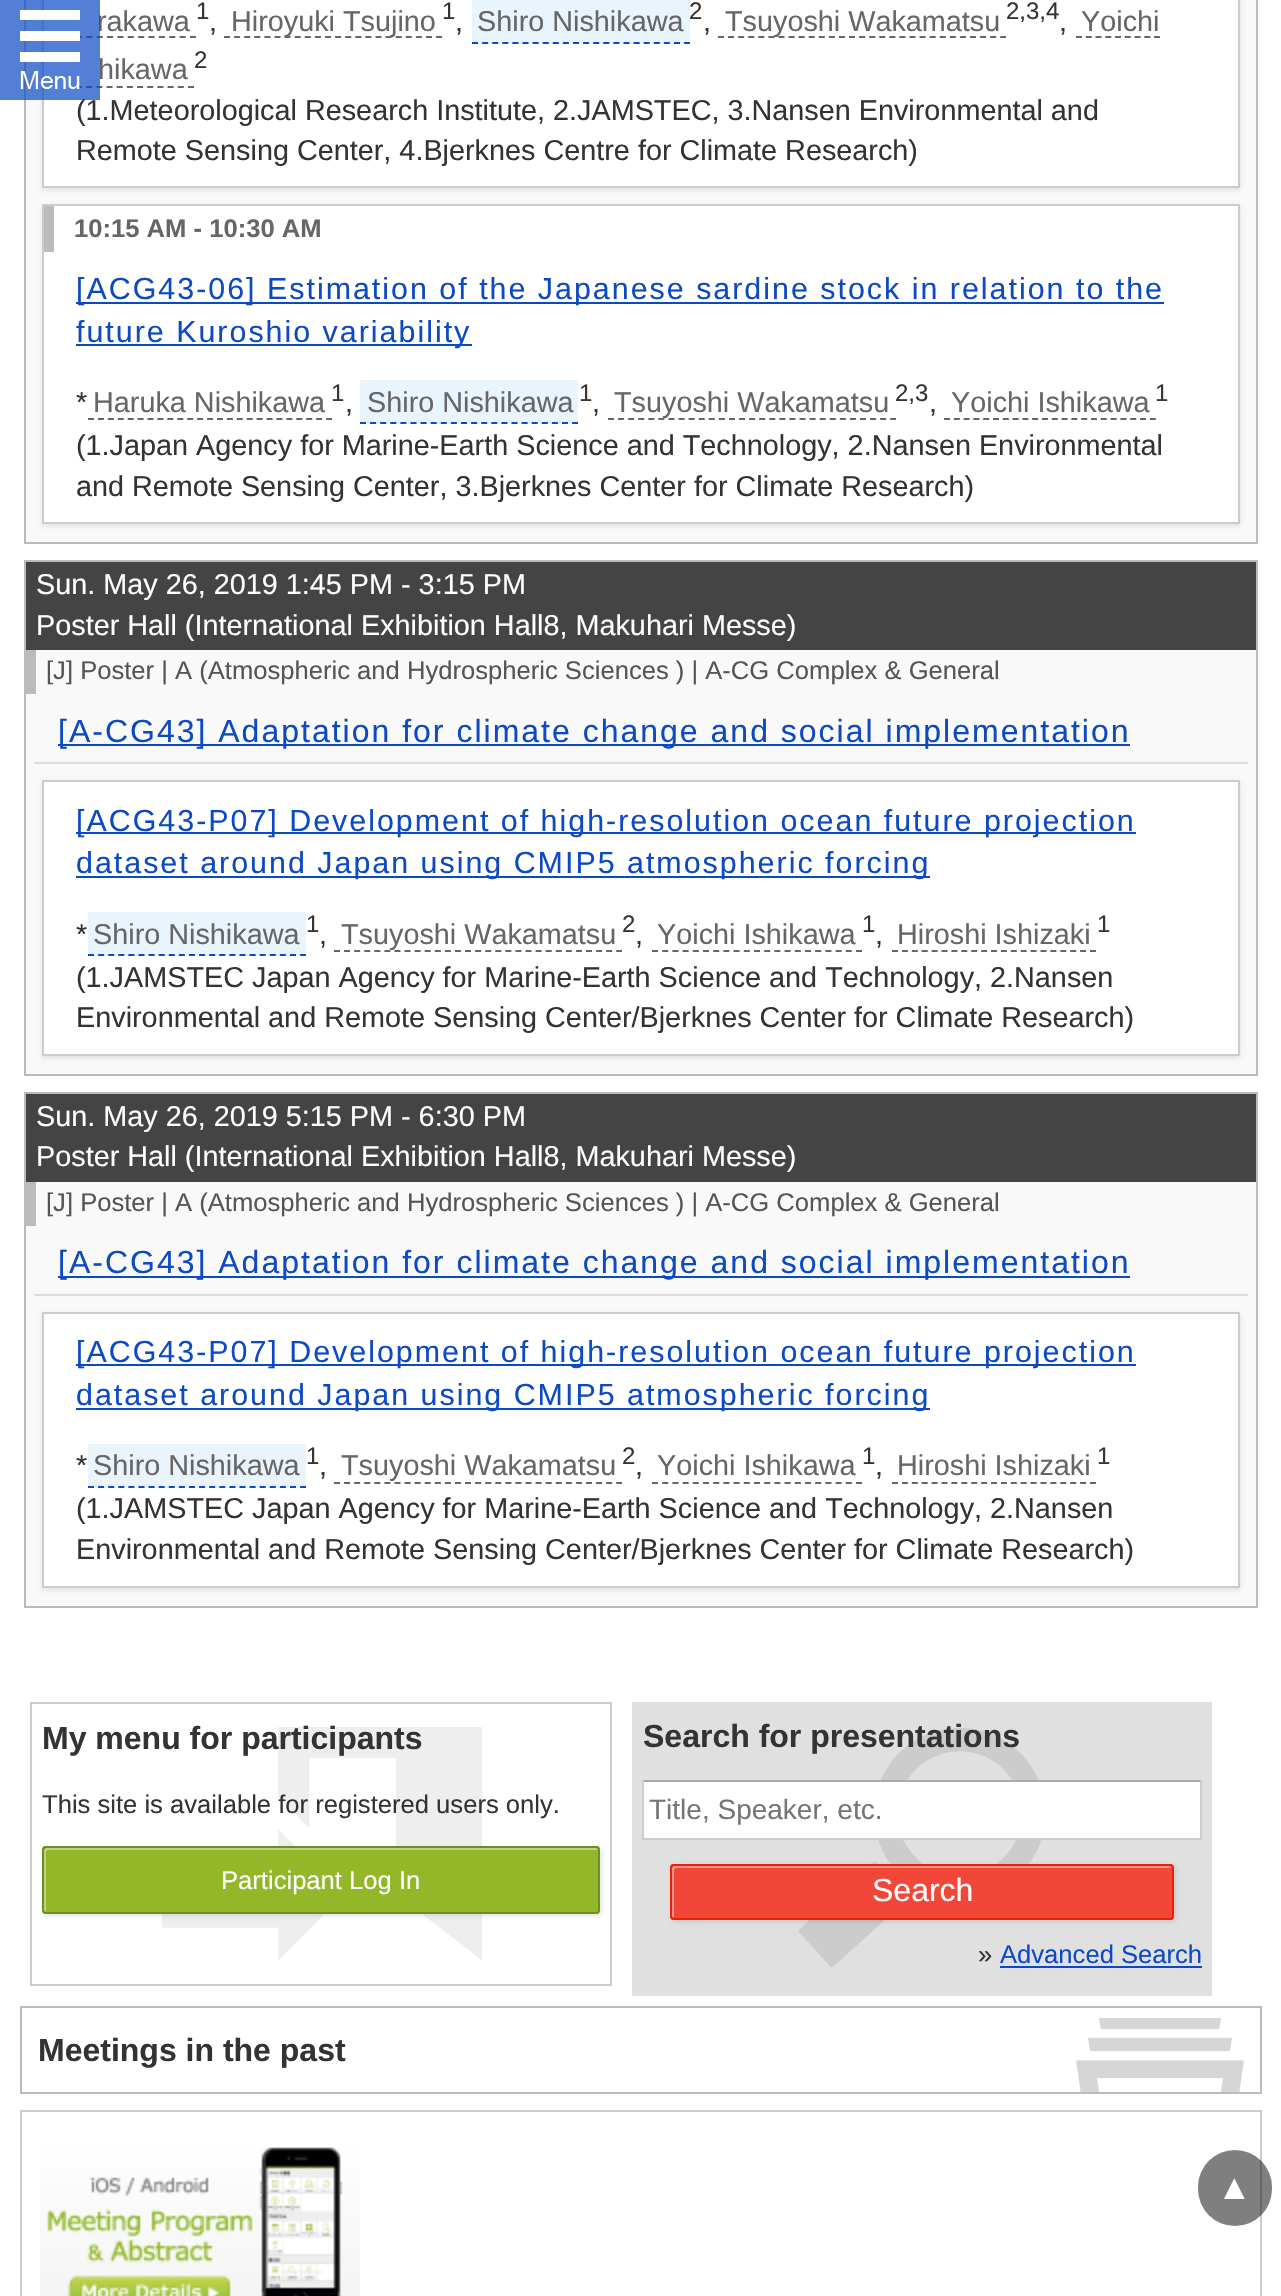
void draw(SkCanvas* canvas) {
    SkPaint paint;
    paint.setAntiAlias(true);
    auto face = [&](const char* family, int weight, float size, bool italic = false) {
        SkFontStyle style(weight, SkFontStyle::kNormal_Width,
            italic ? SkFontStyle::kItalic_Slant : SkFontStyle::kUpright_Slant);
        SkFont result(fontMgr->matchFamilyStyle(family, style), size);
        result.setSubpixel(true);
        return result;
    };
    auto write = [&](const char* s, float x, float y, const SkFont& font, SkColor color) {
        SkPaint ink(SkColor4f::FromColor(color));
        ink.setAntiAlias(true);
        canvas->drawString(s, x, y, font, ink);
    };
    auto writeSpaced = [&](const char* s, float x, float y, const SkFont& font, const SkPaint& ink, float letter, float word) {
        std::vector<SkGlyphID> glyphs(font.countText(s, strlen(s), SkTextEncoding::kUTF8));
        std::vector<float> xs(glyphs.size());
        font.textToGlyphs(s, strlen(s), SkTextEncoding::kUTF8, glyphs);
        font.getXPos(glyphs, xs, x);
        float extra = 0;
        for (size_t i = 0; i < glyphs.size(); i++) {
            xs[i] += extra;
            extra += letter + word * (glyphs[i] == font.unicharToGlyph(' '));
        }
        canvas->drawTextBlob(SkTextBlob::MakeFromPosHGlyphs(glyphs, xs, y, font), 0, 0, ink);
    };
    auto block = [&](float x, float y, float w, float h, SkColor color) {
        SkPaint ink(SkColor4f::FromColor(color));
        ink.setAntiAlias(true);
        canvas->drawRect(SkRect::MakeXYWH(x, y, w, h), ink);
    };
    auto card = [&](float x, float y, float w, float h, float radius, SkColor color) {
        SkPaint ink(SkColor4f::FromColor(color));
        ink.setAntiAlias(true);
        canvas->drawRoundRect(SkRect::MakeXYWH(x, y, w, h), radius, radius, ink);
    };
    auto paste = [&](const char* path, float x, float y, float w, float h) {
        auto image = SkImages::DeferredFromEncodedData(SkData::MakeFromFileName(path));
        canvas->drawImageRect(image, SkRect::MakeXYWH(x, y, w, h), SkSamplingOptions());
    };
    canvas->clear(SK_ColorWHITE);
    paint.setColor(SkColorSetRGB(249, 249, 249));
    canvas->drawRect(SkRect::MakeXYWH(25, -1, 1232, 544), paint);
    paint.setStyle(SkPaint::kStroke_Style);
    paint.setStrokeWidth(2);
    paint.setColor(SkColorSetRGB(187, 187, 187));
    canvas->drawRect(SkRect::MakeXYWH(25, -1, 1232, 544), paint);
    paint.setStyle(SkPaint::kFill_Style);
    paint.setColor(SkColorSetARGB(26, 0, 0, 0));
    paint.setMaskFilter(SkMaskFilter::MakeBlur(kNormal_SkBlurStyle, 2));
    canvas->drawRect(SkRect::MakeXYWH(42, -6, 1198, 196), paint);
    paint.setMaskFilter(nullptr);
    paint.setColor(SK_ColorWHITE);
    canvas->drawRect(SkRect::MakeXYWH(43, -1, 1196, 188), paint);
    paint.setStyle(SkPaint::kStroke_Style);
    paint.setColor(SkColorSetRGB(204, 204, 204));
    canvas->drawRect(SkRect::MakeXYWH(43, -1, 1196, 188), paint);
    auto kFont1 = face("Liberation Sans", 400, 28.8f);
    write("rakawa", 97, 31, kFont1, SkColorSetRGB(102, 102, 102));
    paint.setColor(SkColorSetRGB(102, 102, 102));
    paint.setPathEffect(SkDashPathEffect::Make({{6, 4.36f}}, 0));
    canvas->drawPath(SkPathBuilder().moveTo(76, 37).lineTo(196, 37).detach(), paint);
    paint.setPathEffect(nullptr);
    paint.setPathEffect(SkDashPathEffect::Make({{6, 4.18f}}, 0));
    canvas->drawPath(SkPathBuilder().moveTo(76, 87).lineTo(194, 87).detach(), paint);
    paint.setPathEffect(nullptr);
    write("(1.Meteorological Research Institute, 2.JAMSTEC, 3.Nansen Environmental and", 76, 120, kFont1, SkColorSetRGB(51, 51, 51));
    block(0, 0, 100, 100, SkColorSetARGB(179, 12, 73, 197));
    paste("pic1.png", 20, 10, 60, 79);
    auto kFont2 = face("Liberation Sans", 400, 24);
    write("1", 196, 19, kFont2, SkColorSetRGB(51, 51, 51));
    write(",", 209, 31, kFont1, SkColorSetRGB(51, 51, 51));
    paint.setPathEffect(SkDashPathEffect::Make({{6, 4.1f}}, 0));
    canvas->drawPath(SkPathBuilder().moveTo(224, 37).lineTo(442, 37).detach(), paint);
    paint.setPathEffect(nullptr);
    write("Hiroyuki Tsujino", 231, 31, kFont1, SkColorSetRGB(102, 102, 102));
    write("1", 442, 19, kFont2, SkColorSetRGB(51, 51, 51));
    write(",", 455, 31, kFont1, SkColorSetRGB(51, 51, 51));
    block(472, 0, 218, 44, SkColorSetRGB(234, 244, 252));
    paint.setColor(SkColorSetRGB(12, 73, 197));
    paint.setPathEffect(SkDashPathEffect::Make({{6, 4.1f}}, 0));
    canvas->drawPath(SkPathBuilder().moveTo(472, 43).lineTo(690, 43).detach(), paint);
    paint.setPathEffect(nullptr);
    write("Shiro Nishikawa", 477, 31, kFont1, SkColorSetRGB(102, 102, 102));
    write("2", 689, 19, kFont2, SkColorSetRGB(51, 51, 51));
    write(",", 703, 31, kFont1, SkColorSetRGB(51, 51, 51));
    paint.setColor(SkColorSetRGB(102, 102, 102));
    paint.setPathEffect(SkDashPathEffect::Make({{6, 4.08f}}, 0));
    canvas->drawPath(SkPathBuilder().moveTo(718, 37).lineTo(1006, 37).detach(), paint);
    paint.setPathEffect(nullptr);
    write("Tsuyoshi Wakamatsu", 725, 31, kFont1, SkColorSetRGB(102, 102, 102));
    write("2,3,4", 1006, 19, kFont2, SkColorSetRGB(51, 51, 51));
    write(",", 1059, 31, kFont1, SkColorSetRGB(51, 51, 51));
    write("Yoichi", 1081, 31, kFont1, SkColorSetRGB(102, 102, 102));
    paint.setPathEffect(SkDashPathEffect::Make({{6, 3.76f}}, 0));
    canvas->drawPath(SkPathBuilder().moveTo(1076, 37).lineTo(1160, 37).detach(), paint);
    paint.setPathEffect(nullptr);
    write("hikawa", 98, 79, kFont1, SkColorSetRGB(102, 102, 102));
    write("2", 194, 68, kFont2, SkColorSetRGB(51, 51, 51));
    write("Remote Sensing Center, 4.Bjerknes Centre for Climate Research)", 76, 160, kFont1, SkColorSetRGB(51, 51, 51));
    paint.setStyle(SkPaint::kFill_Style);
    paint.setColor(SkColorSetARGB(26, 0, 0, 0));
    paint.setMaskFilter(SkMaskFilter::MakeBlur(kNormal_SkBlurStyle, 2));
    canvas->drawRect(SkRect::MakeXYWH(42, 206, 1198, 320), paint);
    paint.setMaskFilter(nullptr);
    paint.setColor(SK_ColorWHITE);
    canvas->drawRect(SkRect::MakeXYWH(43, 205, 1196, 318), paint);
    paint.setStyle(SkPaint::kStroke_Style);
    paint.setColor(SkColorSetRGB(204, 204, 204));
    canvas->drawRect(SkRect::MakeXYWH(43, 205, 1196, 318), paint);
    block(44, 206, 10, 46, SkColorSetRGB(187, 187, 187));
    auto kFont3 = face("Liberation Sans", 700, 25.6f);
    write("10:15 AM - 10:30 AM", 74, 237, kFont3, SkColorSetRGB(102, 102, 102));
    block(76, 302, 1088, 2, SkColorSetRGB(12, 73, 197));
    auto kFont4 = face("Liberation Sans", 400, 30.4f);
    paint.setStyle(SkPaint::kFill_Style);
    paint.setColor(SkColorSetRGB(12, 73, 197));
    writeSpaced("[ACG43-06] Estimation of the Japanese sardine stock in relation to the", 76, 299, kFont4, paint, 2, 0);
    block(76, 344, 396, 2, SkColorSetRGB(12, 73, 197));
    writeSpaced("future Kuroshio variability", 76, 342, kFont4, paint, 2, 0);
    write("*", 76, 412, kFont1, SkColorSetRGB(51, 51, 51));
    write("Haruka Nishikawa", 93, 412, kFont1, SkColorSetRGB(102, 102, 102));
    paint.setStyle(SkPaint::kStroke_Style);
    paint.setColor(SkColorSetRGB(102, 102, 102));
    paint.setPathEffect(SkDashPathEffect::Make({{6, 3.92f}}, 0));
    canvas->drawPath(SkPathBuilder().moveTo(88, 419).lineTo(332, 419).detach(), paint);
    paint.setPathEffect(nullptr);
    write("1", 331, 401, kFont2, SkColorSetRGB(51, 51, 51));
    block(360, 380, 218, 44, SkColorSetRGB(234, 244, 252));
    paint.setColor(SkColorSetRGB(12, 73, 197));
    paint.setPathEffect(SkDashPathEffect::Make({{6, 4.1f}}, 0));
    canvas->drawPath(SkPathBuilder().moveTo(360, 423).lineTo(578, 423).detach(), paint);
    paint.setPathEffect(nullptr);
    write("Shiro Nishikawa", 367, 412, kFont1, SkColorSetRGB(102, 102, 102));
    write("1", 579, 401, kFont2, SkColorSetRGB(51, 51, 51));
    write("Tsuyoshi Wakamatsu", 614, 412, kFont1, SkColorSetRGB(102, 102, 102));
    paint.setColor(SkColorSetRGB(102, 102, 102));
    paint.setPathEffect(SkDashPathEffect::Make({{6, 4.08f}}, 0));
    canvas->drawPath(SkPathBuilder().moveTo(608, 419).lineTo(896, 419).detach(), paint);
    paint.setPathEffect(nullptr);
    write("2,3", 895, 401, kFont2, SkColorSetRGB(51, 51, 51));
    write("Yoichi Ishikawa", 951, 412, kFont1, SkColorSetRGB(102, 102, 102));
    paint.setPathEffect(SkDashPathEffect::Make({{6, 3.8f}}, 0));
    canvas->drawPath(SkPathBuilder().moveTo(944, 419).lineTo(1156, 419).detach(), paint);
    paint.setPathEffect(nullptr);
    write("1", 1155, 401, kFont2, SkColorSetRGB(51, 51, 51));
    write(",", 345, 412, kFont1, SkColorSetRGB(51, 51, 51));
    write(",", 592, 412, kFont1, SkColorSetRGB(51, 51, 51));
    write(",", 929, 412, kFont1, SkColorSetRGB(51, 51, 51));
    write("(1.Japan Agency for Marine-Earth Science and Technology, 2.Nansen Environmental", 76, 455, kFont1, SkColorSetRGB(51, 51, 51));
    write("and Remote Sensing Center, 3.Bjerknes Center for Climate Research)", 76, 496, kFont1, SkColorSetRGB(51, 51, 51));
    block(26, 650, 1230, 424, SkColorSetRGB(249, 249, 249));
    paint.setColor(SkColorSetRGB(187, 187, 187));
    canvas->drawRect(SkRect::MakeXYWH(25, 561, 1232, 514), paint);
    block(26, 562, 1230, 88, SkColorSetRGB(68, 68, 68));
    write("Sun. May 26, 2019 1:45 PM - 3:15 PM", 36, 594, kFont1, SK_ColorWHITE);
    write("Poster Hall (International Exhibition Hall8, Makuhari Messe)", 36, 635, kFont1, SK_ColorWHITE);
    block(26, 650, 10, 44, SkColorSetRGB(187, 187, 187));
    auto kFont5 = face("Liberation Sans", 400, 25.6f);
    write("[J] Poster | A (Atmospheric and Hydrospheric Sciences ) | A-CG Complex & General", 46, 679, kFont5, SkColorSetRGB(85, 85, 85));
    block(34, 762, 1214, 2, SkColorSetRGB(221, 221, 221));
    block(58, 744, 1072, 2, SkColorSetRGB(12, 73, 197));
    auto kFont6 = face("Liberation Sans", 400, 32);
    paint.setStyle(SkPaint::kFill_Style);
    paint.setColor(SkColorSetRGB(12, 73, 197));
    writeSpaced("[A-CG43] Adaptation for climate change and social implementation", 58, 742, kFont6, paint, 2, 0);
    paint.setColor(SkColorSetARGB(26, 0, 0, 0));
    paint.setMaskFilter(SkMaskFilter::MakeBlur(kNormal_SkBlurStyle, 2));
    canvas->drawRect(SkRect::MakeXYWH(42, 782, 1198, 276), paint);
    paint.setMaskFilter(nullptr);
    paint.setColor(SK_ColorWHITE);
    canvas->drawRect(SkRect::MakeXYWH(43, 781, 1196, 274), paint);
    paint.setStyle(SkPaint::kStroke_Style);
    paint.setColor(SkColorSetRGB(204, 204, 204));
    canvas->drawRect(SkRect::MakeXYWH(43, 781, 1196, 274), paint);
    block(76, 832, 1060, 2, SkColorSetRGB(12, 73, 197));
    paint.setStyle(SkPaint::kFill_Style);
    paint.setColor(SkColorSetRGB(12, 73, 197));
    writeSpaced("[ACG43-P07] Development of high-resolution ocean future projection", 76, 831, kFont4, paint, 2, 0);
    block(76, 876, 854, 2, SkColorSetRGB(12, 73, 197));
    writeSpaced("dataset around Japan using CMIP5 atmospheric forcing", 76, 873, kFont4, paint, 2, 0);
    write("*", 76, 944, kFont1, SkColorSetRGB(51, 51, 51));
    block(88, 912, 218, 44, SkColorSetRGB(234, 244, 252));
    paint.setStyle(SkPaint::kStroke_Style);
    paint.setPathEffect(SkDashPathEffect::Make({{6, 4.1f}}, 0));
    canvas->drawPath(SkPathBuilder().moveTo(88, 955).lineTo(306, 955).detach(), paint);
    paint.setPathEffect(nullptr);
    write("Shiro Nishikawa", 93, 944, kFont1, SkColorSetRGB(102, 102, 102));
    write("1", 306, 932, kFont2, SkColorSetRGB(51, 51, 51));
    write("Tsuyoshi Wakamatsu", 341, 944, kFont1, SkColorSetRGB(102, 102, 102));
    paint.setColor(SkColorSetRGB(102, 102, 102));
    paint.setPathEffect(SkDashPathEffect::Make({{6, 4.08f}}, 0));
    canvas->drawPath(SkPathBuilder().moveTo(334, 951).lineTo(622, 951).detach(), paint);
    paint.setPathEffect(nullptr);
    write("2", 622, 932, kFont2, SkColorSetRGB(51, 51, 51));
    write("Yoichi Ishikawa", 657, 944, kFont1, SkColorSetRGB(102, 102, 102));
    paint.setPathEffect(SkDashPathEffect::Make({{6, 4.2f}}, 0));
    canvas->drawPath(SkPathBuilder().moveTo(652, 951).lineTo(862, 951).detach(), paint);
    paint.setPathEffect(nullptr);
    write("1", 862, 932, kFont2, SkColorSetRGB(51, 51, 51));
    write("Hiroshi Ishizaki", 897, 944, kFont1, SkColorSetRGB(102, 102, 102));
    paint.setPathEffect(SkDashPathEffect::Make({{6, 3.9f}}, 0));
    canvas->drawPath(SkPathBuilder().moveTo(892, 951).lineTo(1096, 951).detach(), paint);
    paint.setPathEffect(nullptr);
    write("1", 1097, 932, kFont2, SkColorSetRGB(51, 51, 51));
    write(",", 319, 944, kFont1, SkColorSetRGB(51, 51, 51));
    write(",", 635, 944, kFont1, SkColorSetRGB(51, 51, 51));
    write(",", 875, 944, kFont1, SkColorSetRGB(51, 51, 51));
    write("(1.JAMSTEC Japan Agency for Marine-Earth Science and Technology, 2.Nansen", 76, 987, kFont1, SkColorSetRGB(51, 51, 51));
    write("Environmental and Remote Sensing Center/Bjerknes Center for Climate Research)", 76, 1027, kFont1, SkColorSetRGB(51, 51, 51));
    block(26, 1182, 1230, 424, SkColorSetRGB(249, 249, 249));
    paint.setColor(SkColorSetRGB(187, 187, 187));
    canvas->drawRect(SkRect::MakeXYWH(25, 1093, 1232, 514), paint);
    block(26, 1094, 1230, 88, SkColorSetRGB(68, 68, 68));
    write("Sun. May 26, 2019 5:15 PM - 6:30 PM", 36, 1126, kFont1, SK_ColorWHITE);
    write("Poster Hall (International Exhibition Hall8, Makuhari Messe)", 36, 1166, kFont1, SK_ColorWHITE);
    block(26, 1182, 10, 44, SkColorSetRGB(187, 187, 187));
    write("[J] Poster | A (Atmospheric and Hydrospheric Sciences ) | A-CG Complex & General", 46, 1211, kFont5, SkColorSetRGB(85, 85, 85));
    block(34, 1294, 1214, 2, SkColorSetRGB(221, 221, 221));
    block(58, 1276, 1072, 2, SkColorSetRGB(12, 73, 197));
    paint.setStyle(SkPaint::kFill_Style);
    paint.setColor(SkColorSetRGB(12, 73, 197));
    writeSpaced("[A-CG43] Adaptation for climate change and social implementation", 58, 1273, kFont6, paint, 2, 0);
    paint.setColor(SkColorSetARGB(26, 0, 0, 0));
    paint.setMaskFilter(SkMaskFilter::MakeBlur(kNormal_SkBlurStyle, 2));
    canvas->drawRect(SkRect::MakeXYWH(42, 1314, 1198, 276), paint);
    paint.setMaskFilter(nullptr);
    paint.setColor(SK_ColorWHITE);
    canvas->drawRect(SkRect::MakeXYWH(43, 1313, 1196, 274), paint);
    paint.setStyle(SkPaint::kStroke_Style);
    paint.setColor(SkColorSetRGB(204, 204, 204));
    canvas->drawRect(SkRect::MakeXYWH(43, 1313, 1196, 274), paint);
    block(76, 1364, 1060, 2, SkColorSetRGB(12, 73, 197));
    paint.setStyle(SkPaint::kFill_Style);
    paint.setColor(SkColorSetRGB(12, 73, 197));
    writeSpaced("[ACG43-P07] Development of high-resolution ocean future projection", 76, 1362, kFont4, paint, 2, 0);
    block(76, 1408, 854, 2, SkColorSetRGB(12, 73, 197));
    writeSpaced("dataset around Japan using CMIP5 atmospheric forcing", 76, 1405, kFont4, paint, 2, 0);
    write("*", 76, 1475, kFont1, SkColorSetRGB(51, 51, 51));
    block(88, 1444, 218, 44, SkColorSetRGB(234, 244, 252));
    paint.setStyle(SkPaint::kStroke_Style);
    paint.setPathEffect(SkDashPathEffect::Make({{6, 4.1f}}, 0));
    canvas->drawPath(SkPathBuilder().moveTo(88, 1487).lineTo(306, 1487).detach(), paint);
    paint.setPathEffect(nullptr);
    write("Shiro Nishikawa", 93, 1475, kFont1, SkColorSetRGB(102, 102, 102));
    write("1", 306, 1464, kFont2, SkColorSetRGB(51, 51, 51));
    write("Tsuyoshi Wakamatsu", 341, 1475, kFont1, SkColorSetRGB(102, 102, 102));
    paint.setColor(SkColorSetRGB(102, 102, 102));
    paint.setPathEffect(SkDashPathEffect::Make({{6, 4.08f}}, 0));
    canvas->drawPath(SkPathBuilder().moveTo(334, 1483).lineTo(622, 1483).detach(), paint);
    paint.setPathEffect(nullptr);
    write("2", 622, 1464, kFont2, SkColorSetRGB(51, 51, 51));
    write("Yoichi Ishikawa", 657, 1475, kFont1, SkColorSetRGB(102, 102, 102));
    paint.setPathEffect(SkDashPathEffect::Make({{6, 4.2f}}, 0));
    canvas->drawPath(SkPathBuilder().moveTo(652, 1483).lineTo(862, 1483).detach(), paint);
    paint.setPathEffect(nullptr);
    write("1", 862, 1464, kFont2, SkColorSetRGB(51, 51, 51));
    write("Hiroshi Ishizaki", 897, 1475, kFont1, SkColorSetRGB(102, 102, 102));
    paint.setPathEffect(SkDashPathEffect::Make({{6, 3.9f}}, 0));
    canvas->drawPath(SkPathBuilder().moveTo(892, 1483).lineTo(1096, 1483).detach(), paint);
    paint.setPathEffect(nullptr);
    write("1", 1097, 1464, kFont2, SkColorSetRGB(51, 51, 51));
    write(",", 319, 1475, kFont1, SkColorSetRGB(51, 51, 51));
    write(",", 635, 1475, kFont1, SkColorSetRGB(51, 51, 51));
    write(",", 875, 1475, kFont1, SkColorSetRGB(51, 51, 51));
    write("(1.JAMSTEC Japan Agency for Marine-Earth Science and Technology, 2.Nansen", 76, 1518, kFont1, SkColorSetRGB(51, 51, 51));
    write("Environmental and Remote Sensing Center/Bjerknes Center for Climate Research)", 76, 1559, kFont1, SkColorSetRGB(51, 51, 51));
    paste("pic2.png", 162, 1727, 320, 233);
    paint.setColor(SkColorSetRGB(204, 204, 204));
    canvas->drawRect(SkRect::MakeXYWH(31, 1703, 580, 282), paint);
    auto kFont7 = face("Liberation Sans", 700, 32);
    write("My menu for participants", 42, 1749, kFont7, SkColorSetRGB(51, 51, 51));
    write("This site is available for registered users only.", 42, 1813, kFont5, SkColorSetRGB(51, 51, 51));
    paint.setStyle(SkPaint::kFill_Style);
    paint.setColor(SkColorSetARGB(26, 0, 0, 0));
    paint.setMaskFilter(SkMaskFilter::MakeBlur(kNormal_SkBlurStyle, 2));
    canvas->drawRoundRect(SkRect::MakeXYWH(44, 1848, 558, 68), 4, 4, paint);
    paint.setMaskFilter(nullptr);
    card(42, 1846, 558, 68, 4, SkColorSetRGB(147, 183, 40));
    paint.setColor(SkColorSetRGB(190, 212, 126));
    canvas->drawPath(SkPathBuilder().moveTo(48, 1850).lineTo(598, 1850).cubicTo(598, 1849, 597, 1848, 596, 1848).lineTo(46, 1848).cubicTo(45, 1848, 44, 1849, 44, 1850).lineTo(44, 1910).cubicTo(44, 1911, 45, 1912, 46, 1912).lineTo(46, 1852).cubicTo(46, 1851, 47, 1850, 48, 1850).close().detach(), paint);
    paint.setStyle(SkPaint::kStroke_Style);
    paint.setColor(SkColorSetRGB(113, 141, 31));
    canvas->drawRoundRect(SkRect::MakeXYWH(43, 1847, 556, 66), 3, 3, paint);
    write("Participant Log In", 221, 1889, kFont5, SK_ColorWHITE);
    block(632, 1702, 580, 294, SkColorSetRGB(224, 224, 224));
    paste("pic3.png", 798, 1728, 244, 240);
    write("Search for presentations", 643, 1747, kFont7, SkColorSetRGB(51, 51, 51));
    block(644, 1782, 556, 56, SK_ColorWHITE);
    block(642, 1780, 560, 2, SkColorSetRGB(170, 170, 170));
    block(1200, 1780, 2, 60, SkColorSetRGB(204, 204, 204));
    block(642, 1838, 560, 2, SkColorSetRGB(204, 204, 204));
    block(642, 1780, 2, 60, SkColorSetRGB(204, 204, 204));
    auto kFont8 = face("Liberation Sans", 400, 28);
    write("Title, Speaker, etc.", 649, 1819, kFont8, SkColorSetRGB(117, 117, 117));
    paint.setStyle(SkPaint::kFill_Style);
    paint.setColor(SkColorSetARGB(26, 0, 0, 0));
    paint.setMaskFilter(SkMaskFilter::MakeBlur(kNormal_SkBlurStyle, 2));
    canvas->drawRoundRect(SkRect::MakeXYWH(672, 1866, 504, 56), 4, 4, paint);
    paint.setMaskFilter(nullptr);
    card(670, 1864, 504, 56, 4, SkColorSetRGB(242, 71, 56));
    paint.setColor(SkColorSetRGB(247, 145, 136));
    canvas->drawPath(SkPathBuilder().moveTo(676, 1868).lineTo(1172, 1868).cubicTo(1172, 1867, 1171, 1866, 1170, 1866).lineTo(674, 1866).cubicTo(673, 1866, 672, 1867, 672, 1868).lineTo(672, 1916).cubicTo(672, 1917, 673, 1918, 674, 1918).lineTo(674, 1870).cubicTo(674, 1869, 675, 1868, 676, 1868).close().detach(), paint);
    paint.setStyle(SkPaint::kStroke_Style);
    paint.setColor(SkColorSetRGB(232, 33, 15));
    canvas->drawRoundRect(SkRect::MakeXYWH(671, 1865, 502, 54), 3, 3, paint);
    write("Search", 872, 1901, kFont6, SK_ColorWHITE);
    write("»", 978, 1963, kFont5, SkColorSetRGB(51, 51, 51));
    write("Advanced Search", 1000, 1963, kFont5, SkColorSetRGB(12, 73, 197));
    block(1000, 1966, 202, 2, SkColorSetRGB(12, 73, 197));
    paste("pic4.png", 1076, 2018, 168, 74);
    paint.setColor(SkColorSetRGB(187, 187, 187));
    canvas->drawRect(SkRect::MakeXYWH(21, 2007, 1240, 86), paint);
    write("Meetings in the past", 38, 2061, kFont7, SkColorSetRGB(51, 51, 51));
    paint.setColor(SkColorSetRGB(204, 204, 204));
    canvas->drawRect(SkRect::MakeXYWH(21, 2111, 1240, 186), paint);
    paste("pic5.png", 40, 2147, 320, 149);
    card(1198, 2150, 74, 76, 37, SkColorSetARGB(128, 0, 0, 0));
    auto kFont9 = face("Liberation Sans", 400, 35);
    write("▲", 1217, 2199, kFont9, SK_ColorWHITE);
}
